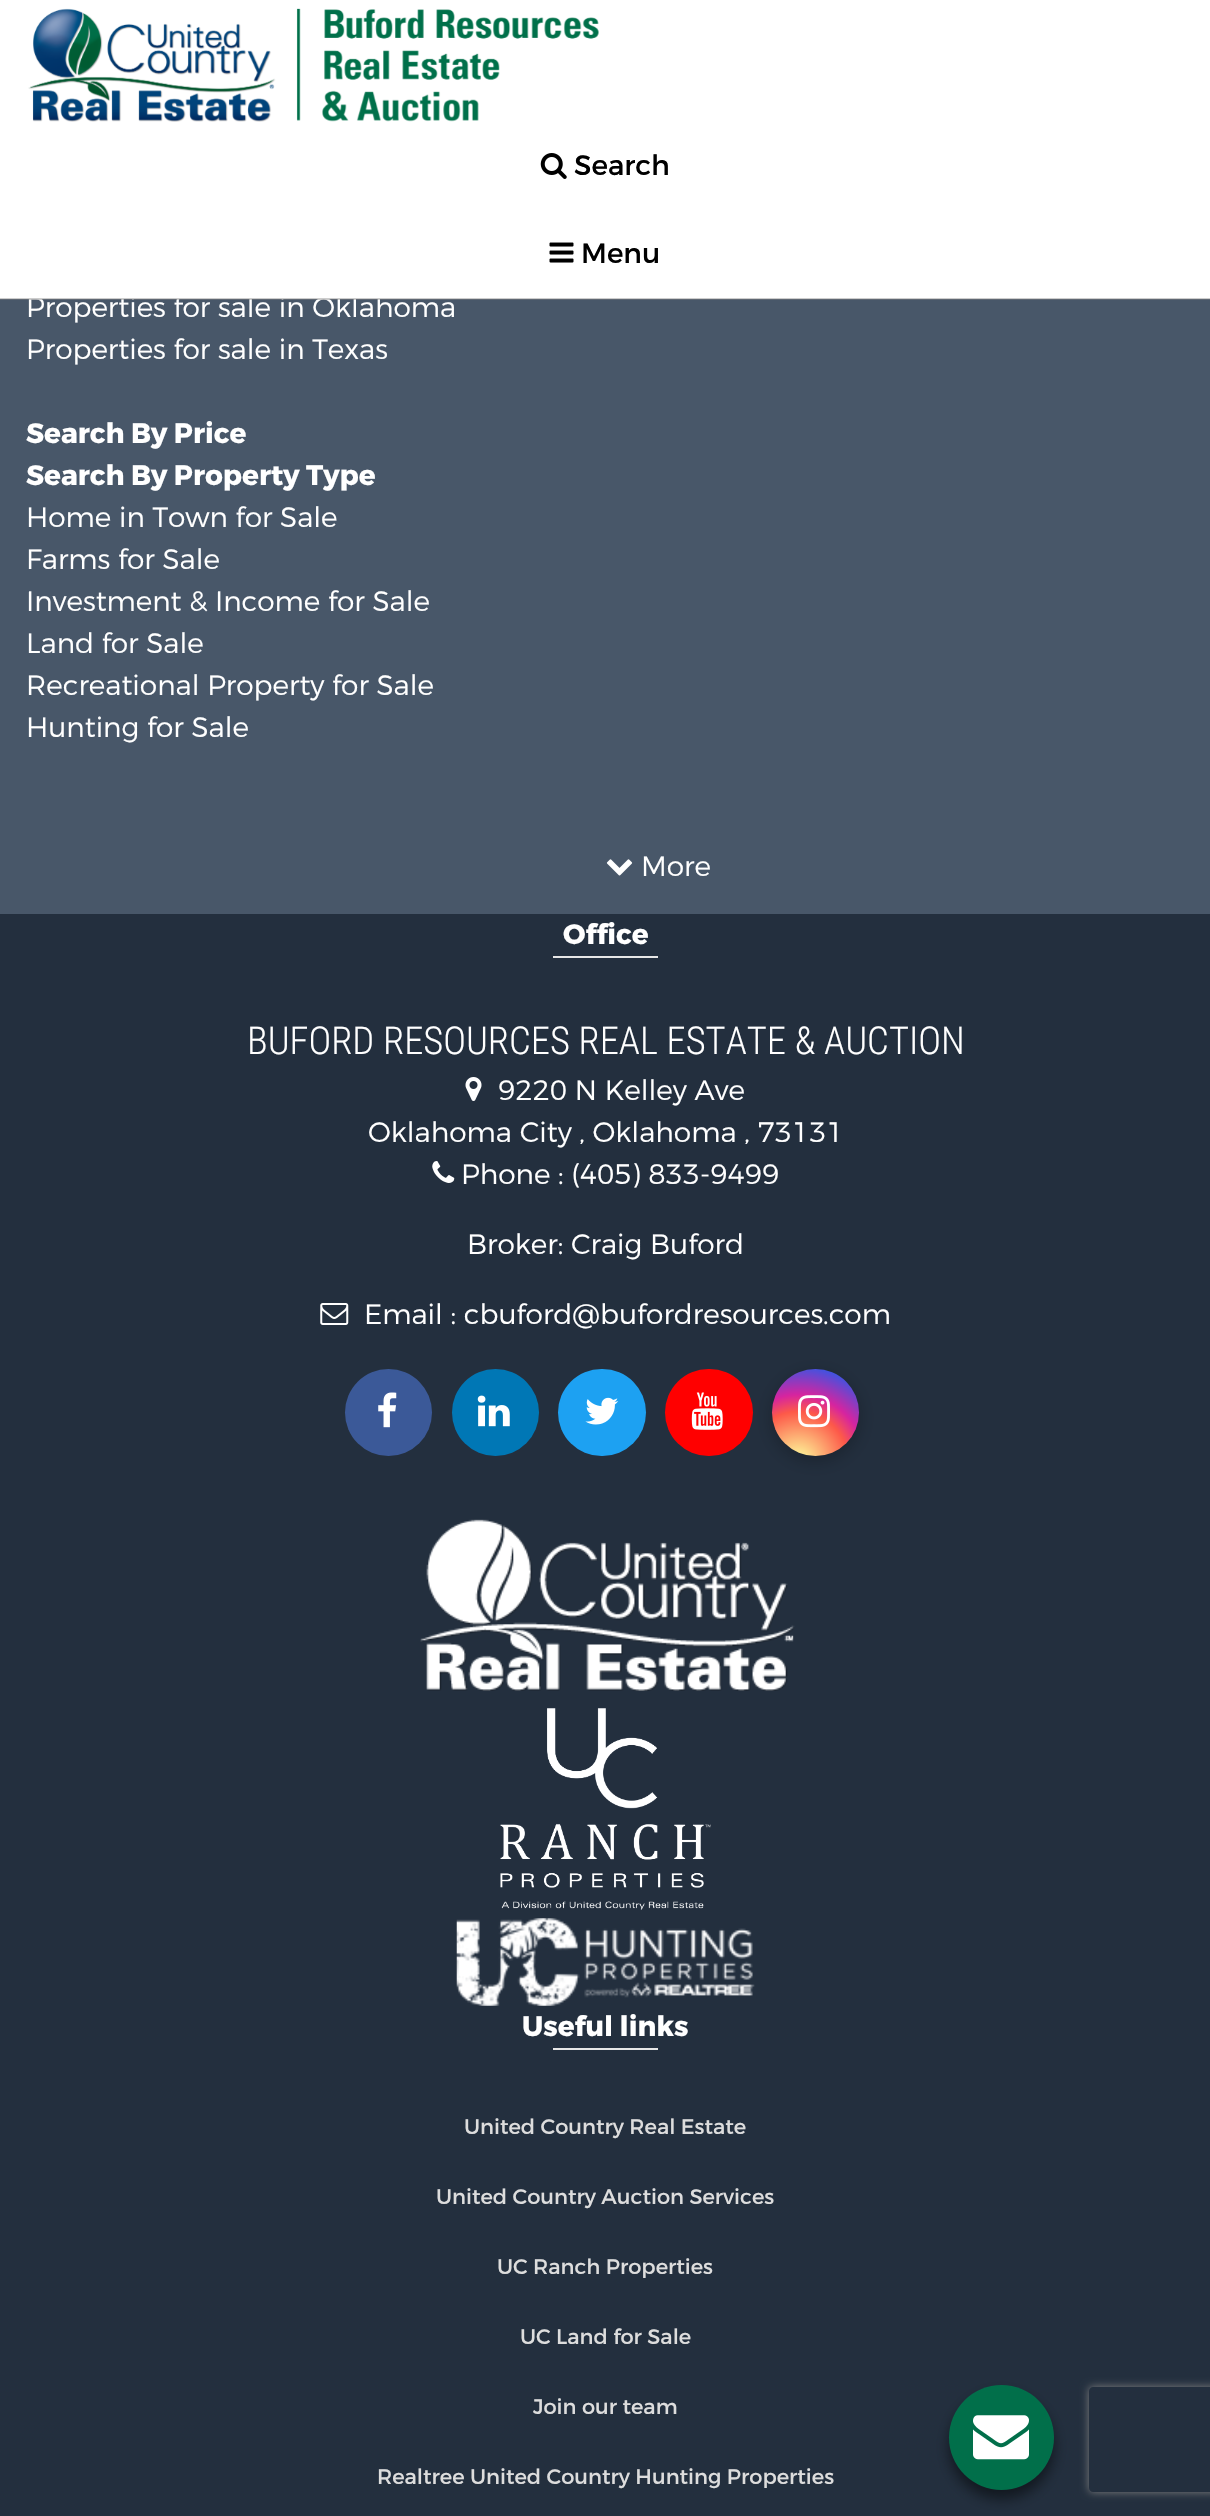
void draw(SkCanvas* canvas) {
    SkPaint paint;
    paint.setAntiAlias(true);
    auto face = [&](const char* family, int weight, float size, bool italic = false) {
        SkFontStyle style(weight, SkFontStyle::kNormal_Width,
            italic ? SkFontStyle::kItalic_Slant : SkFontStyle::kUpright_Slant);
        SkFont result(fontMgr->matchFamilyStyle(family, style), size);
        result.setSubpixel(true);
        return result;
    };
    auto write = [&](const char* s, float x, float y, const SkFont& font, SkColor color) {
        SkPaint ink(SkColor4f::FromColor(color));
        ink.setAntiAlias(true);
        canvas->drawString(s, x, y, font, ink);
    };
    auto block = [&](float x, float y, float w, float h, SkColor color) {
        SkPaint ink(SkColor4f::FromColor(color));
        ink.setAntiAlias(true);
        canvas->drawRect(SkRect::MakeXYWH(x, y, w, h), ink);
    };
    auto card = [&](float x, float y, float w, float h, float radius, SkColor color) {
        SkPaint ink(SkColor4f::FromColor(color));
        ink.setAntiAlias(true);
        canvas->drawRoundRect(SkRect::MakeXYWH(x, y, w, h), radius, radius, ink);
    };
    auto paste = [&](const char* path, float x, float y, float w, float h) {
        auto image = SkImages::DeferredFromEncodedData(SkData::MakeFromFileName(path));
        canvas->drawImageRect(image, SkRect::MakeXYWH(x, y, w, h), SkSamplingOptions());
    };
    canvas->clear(SkColorSetRGB(35, 47, 62));
    block(0, 0, 1210, 299, SK_ColorWHITE);
    block(0, 299, 1210, 615, SkColorSetRGB(72, 87, 105));
    auto kFont1 = face("Montserrat", 300, 28);
    write("Properties for sale in Oklahoma", 26, 317, kFont1, SK_ColorWHITE);
    block(0, 298, 1210, 2, SkColorSetARGB(102, 128, 128, 128));
    paste("pic1.png", 28, 8, 571, 114);
    paste("pic2.png", 540, 153, 27, 26);
    auto kFont2 = face("Montserrat", 400, 28);
    write("Search", 574, 175, kFont2, SK_ColorBLACK);
    paste("pic3.png", 549, 242, 25, 21);
    write("Menu", 581, 263, kFont2, SK_ColorBLACK);
    write("Properties for sale in Texas", 26, 359, kFont1, SK_ColorWHITE);
    auto kFont3 = face("Montserrat", 700, 28);
    write("Search By Price", 26, 443, kFont3, SK_ColorWHITE);
    write("Search By Property Type", 26, 485, kFont3, SK_ColorWHITE);
    write("Home in Town for Sale", 26, 527, kFont1, SK_ColorWHITE);
    write("Farms for Sale", 26, 569, kFont1, SK_ColorWHITE);
    write("Investment & Income for Sale", 26, 611, kFont1, SK_ColorWHITE);
    write("Land for Sale", 26, 653, kFont1, SK_ColorWHITE);
    write("Recreational Property for Sale", 26, 695, kFont1, SK_ColorWHITE);
    write("Hunting for Sale", 26, 737, kFont1, SK_ColorWHITE);
    paste("pic4.png", 606, 859, 27, 17);
    write("More", 641, 876, kFont1, SK_ColorWHITE);
    write("Office", 563, 944, kFont3, SK_ColorWHITE);
    block(553, 956, 105, 2, SkColorSetRGB(230, 230, 230));
    auto kFont4 = face("Roboto Condensed", 300, 38.5f);
    write("BUFORD RESOURCES REAL ESTATE & AUCTION", 247, 1054, kFont4, SK_ColorWHITE);
    paste("pic5.png", 465, 1077, 17, 24);
    write("9220 N Kelley Ave", 498, 1100, kFont1, SK_ColorWHITE);
    write("Oklahoma City , Oklahoma , 73131", 368, 1142, kFont1, SK_ColorWHITE);
    paste("pic6.png", 432, 1161, 23, 22);
    write("Phone : (405) 833-9499", 461, 1184, kFont1, SK_ColorWHITE);
    write("Broker: Craig Buford", 467, 1254, kFont1, SK_ColorWHITE);
    paste("pic7.png", 320, 1303, 29, 22);
    write("Email : cbuford@bufordresources.com", 364, 1324, kFont1, SK_ColorWHITE);
    paint.setColor(SkColorSetRGB(59, 89, 152));
    canvas->drawCircle(388.5f, 1412.5f, 43.5f, paint);
    paste("pic8.png", 378, 1392, 19, 36);
    paint.setColor(SkColorSetRGB(0, 119, 181));
    canvas->drawCircle(495.5f, 1412.5f, 43.5f, paint);
    paste("pic9.png", 477, 1395, 33, 32);
    card(558, 1369, 88, 87, 43.5f, SkColorSetRGB(29, 161, 242));
    paste("pic10.png", 585, 1397, 34, 28);
    card(665, 1369, 88, 87, 43.5f, SkColorSetRGB(255, 0, 0));
    paste("pic11.png", 691, 1392, 32, 38);
    paint.setColor(SkColorSetARGB(64, 0, 0, 0));
    paint.setMaskFilter(SkMaskFilter::MakeBlur(kNormal_SkBlurStyle, 9));
    canvas->drawRoundRect(SkRect::MakeXYWH(772, 1374, 87, 87), 43.5f, 43.5f, paint);
    paint.setMaskFilter(nullptr);
    {
        const SkColor colors[] = {SkColorSetRGB(253, 244, 151), SkColorSetRGB(253, 244, 151), SkColorSetRGB(253, 89, 73), SkColorSetRGB(214, 36, 159), SkColorSetRGB(40, 90, 235)};
        const float stops[] = {0, 0.05f, 0.45f, 0.6f, 0.9f};
        paint.setShader(SkGradientShader::MakeRadial({798, 1462}, 112, colors, stops, 5, SkTileMode::kClamp));
        paint.setAlpha(255);
    }
    canvas->drawCircle(815.5f, 1412.5f, 43.5f, paint);
    paste("pic12.png", 798, 1395, 32, 33);
    paste("pic13.png", 420, 1519, 375, 172);
    paste("pic14.png", 500, 1708, 211, 202);
    paste("pic15.png", 456, 1918, 299, 88);
    write("Useful links", 522, 2036, kFont3, SK_ColorWHITE);
    block(553, 2048, 105, 2, SkColorSetRGB(230, 230, 230));
    auto kFont5 = face("Montserrat", 400, 21);
    write("United Country Real Estate", 464, 2134, kFont5, SkColorSetRGB(221, 221, 221));
    write("United Country Auction Services", 436, 2204, kFont5, SkColorSetRGB(221, 221, 221));
    write("UC Ranch Properties", 497, 2274, kFont5, SkColorSetRGB(221, 221, 221));
    write("UC Land for Sale", 520, 2344, kFont5, SkColorSetRGB(221, 221, 221));
    write("Join our team", 533, 2414, kFont5, SkColorSetRGB(221, 221, 221));
    write("Realtree United Country Hunting Properties", 377, 2484, kFont5, SkColorSetRGB(221, 221, 221));
    paint.setShader(nullptr);
    paint.setColor(SkColorSetARGB(128, 0, 0, 0));
    paint.setMaskFilter(SkMaskFilter::MakeBlur(kNormal_SkBlurStyle, 7));
    canvas->drawRoundRect(SkRect::MakeXYWH(949, 2394, 105, 105), 52.5f, 52.5f, paint);
    paint.setMaskFilter(nullptr);
    paint.setColor(SkColorSetRGB(1, 111, 74));
    canvas->drawCircle(1001.5f, 2437.5f, 52.5f, paint);
    paste("pic16.png", 973, 2415, 56, 45);
    canvas->save();
    canvas->clipPath(SkPathBuilder(SkPathFillType::kEvenOdd).moveTo(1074, 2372).lineTo(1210, 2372).lineTo(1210, 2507).lineTo(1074, 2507).close().moveTo(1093, 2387).lineTo(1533, 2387).cubicTo(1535, 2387, 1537, 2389, 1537, 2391).lineTo(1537, 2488).cubicTo(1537, 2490, 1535, 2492, 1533, 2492).lineTo(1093, 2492).cubicTo(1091, 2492, 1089, 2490, 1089, 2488).lineTo(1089, 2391).cubicTo(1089, 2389, 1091, 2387, 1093, 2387).close().detach(), true);
    paint.setColor(SkColorSetRGB(128, 128, 128));
    paint.setMaskFilter(SkMaskFilter::MakeBlur(kNormal_SkBlurStyle, 4.5f));
    canvas->drawRoundRect(SkRect::MakeXYWH(1089, 2387, 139, 105), 4, 4, paint);
    paint.setMaskFilter(nullptr);
    canvas->restore();
}
